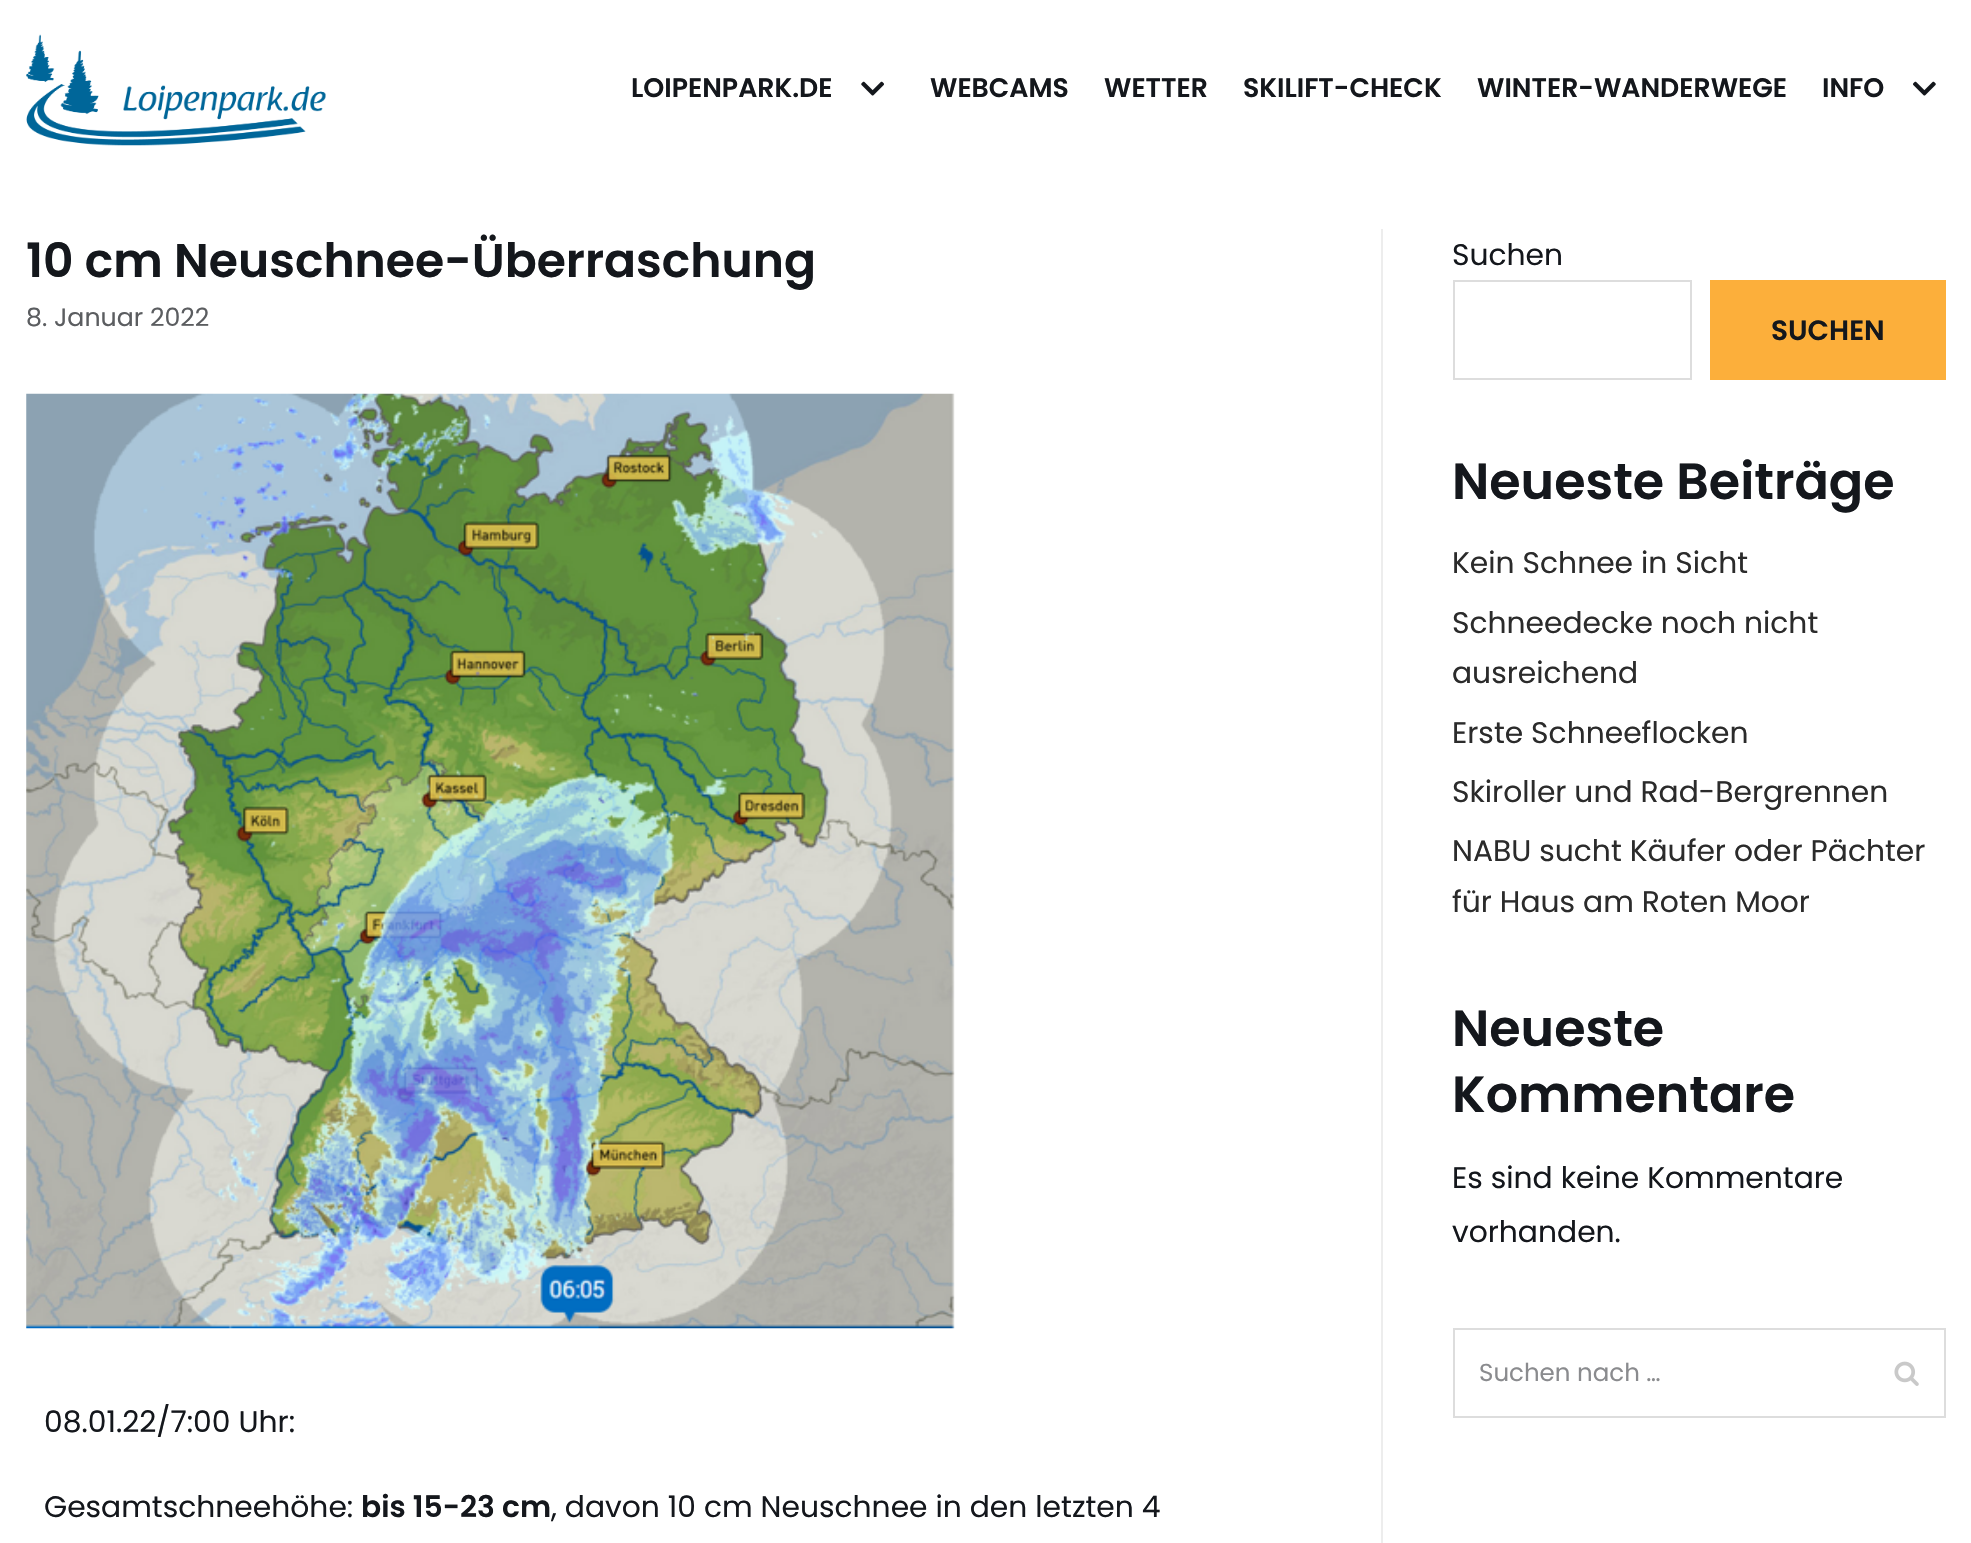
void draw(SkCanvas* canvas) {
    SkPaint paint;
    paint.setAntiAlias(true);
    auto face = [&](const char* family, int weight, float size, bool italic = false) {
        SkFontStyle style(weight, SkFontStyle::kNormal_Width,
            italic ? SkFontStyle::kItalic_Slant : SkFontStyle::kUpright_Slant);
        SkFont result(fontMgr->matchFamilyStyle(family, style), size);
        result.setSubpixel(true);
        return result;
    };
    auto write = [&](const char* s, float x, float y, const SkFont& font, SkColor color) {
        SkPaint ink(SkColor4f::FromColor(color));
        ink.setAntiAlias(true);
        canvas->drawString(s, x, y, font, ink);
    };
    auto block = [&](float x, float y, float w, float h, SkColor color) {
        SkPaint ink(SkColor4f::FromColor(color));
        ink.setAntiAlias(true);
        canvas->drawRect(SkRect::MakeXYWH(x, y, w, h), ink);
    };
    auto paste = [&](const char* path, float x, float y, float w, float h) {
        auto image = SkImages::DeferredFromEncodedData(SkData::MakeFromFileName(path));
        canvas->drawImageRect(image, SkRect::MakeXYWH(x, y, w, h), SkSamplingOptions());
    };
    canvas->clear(SK_ColorWHITE);
    paste("pic1.png", 26, 34, 300, 112);
    auto kFont1 = face("Poppins", 600, 26.75f);
    write("LOIPENPARK.DE", 631, 97, kFont1, SkColorSetRGB(20, 23, 28));
    paste("pic2.png", 861, 81, 23, 15);
    write("WEBCAMS", 930, 97, kFont1, SkColorSetRGB(20, 23, 28));
    write("WETTER", 1104, 97, kFont1, SkColorSetRGB(20, 23, 28));
    write("SKILIFT-CHECK", 1243, 97, kFont1, SkColorSetRGB(20, 23, 28));
    write("WINTER-WANDERWEGE", 1477, 97, kFont1, SkColorSetRGB(20, 23, 28));
    write("INFO", 1822, 97, kFont1, SkColorSetRGB(20, 23, 28));
    paste("pic3.png", 1913, 81, 23, 15);
    auto kFont2 = face("Poppins", 600, 47.25f);
    write("10 cm Neuschnee-Überraschung", 26, 277, kFont2, SkColorSetRGB(20, 23, 28));
    auto kFont3 = face("Poppins", 400, 25.25f);
    write("8. Januar 2022", 26, 326, kFont3, SkColorSetRGB(91, 93, 96));
    paste("pic4.png", 26, 393, 929, 936);
    auto kFont4 = face("Poppins", 400, 29.75f);
    write("08.01.22/7:00 Uhr:", 44, 1432, kFont4, SkColorSetRGB(20, 23, 28));
    write("Gesamtschneehöhe:", 44, 1517, kFont4, SkColorSetRGB(20, 23, 28));
    auto kFont5 = face("Poppins", 600, 29.75f);
    write("bis 15-23 cm", 361, 1517, kFont5, SkColorSetRGB(20, 23, 28));
    write(", davon 10 cm Neuschnee in den letzten 4", 551, 1517, kFont4, SkColorSetRGB(20, 23, 28));
    block(1381, 229, 2, 1314, SkColorSetRGB(237, 237, 237));
    write("Suchen", 1452, 265, kFont4, SkColorSetRGB(20, 23, 28));
    paint.setStyle(SkPaint::kStroke_Style);
    paint.setStrokeWidth(2);
    paint.setColor(SkColorSetRGB(221, 221, 221));
    canvas->drawRect(SkRect::MakeXYWH(1454, 281, 237, 98), paint);
    block(1710, 280, 236, 100, SkColorSetRGB(252, 175, 59));
    auto kFont6 = face("Poppins", 600, 28);
    write("SUCHEN", 1771, 340, kFont6, SkColorSetRGB(20, 23, 28));
    auto kFont7 = face("Poppins", 600, 50.75f);
    write("Neueste Beiträge", 1452, 499, kFont7, SkColorSetRGB(20, 23, 28));
    write("Kein Schnee in Sicht", 1452, 573, kFont4, SkColorSetRGB(43, 43, 43));
    write("Schneedecke noch nicht", 1452, 633, kFont4, SkColorSetRGB(43, 43, 43));
    write("ausreichend", 1452, 683, kFont4, SkColorSetRGB(43, 43, 43));
    write("Erste Schneeflocken", 1452, 743, kFont4, SkColorSetRGB(43, 43, 43));
    write("Skiroller und Rad-Bergrennen", 1452, 802, kFont4, SkColorSetRGB(43, 43, 43));
    write("NABU sucht Käufer oder Pächter", 1452, 861, kFont4, SkColorSetRGB(43, 43, 43));
    write("für Haus am Roten Moor", 1452, 912, kFont4, SkColorSetRGB(43, 43, 43));
    write("Neueste", 1452, 1046, kFont7, SkColorSetRGB(20, 23, 28));
    write("Kommentare", 1452, 1112, kFont7, SkColorSetRGB(20, 23, 28));
    write("Es sind keine Kommentare", 1452, 1188, kFont4, SkColorSetRGB(20, 23, 28));
    write("vorhanden.", 1452, 1242, kFont4, SkColorSetRGB(20, 23, 28));
    canvas->drawRect(SkRect::MakeXYWH(1454, 1329, 491, 88), paint);
    auto kFont8 = face("Poppins", 400, 24.5f);
    write("Suchen nach …", 1479, 1381, kFont8, SkColorSetRGB(138, 139, 142));
    paste("pic5.png", 1894, 1361, 25, 25);
}
